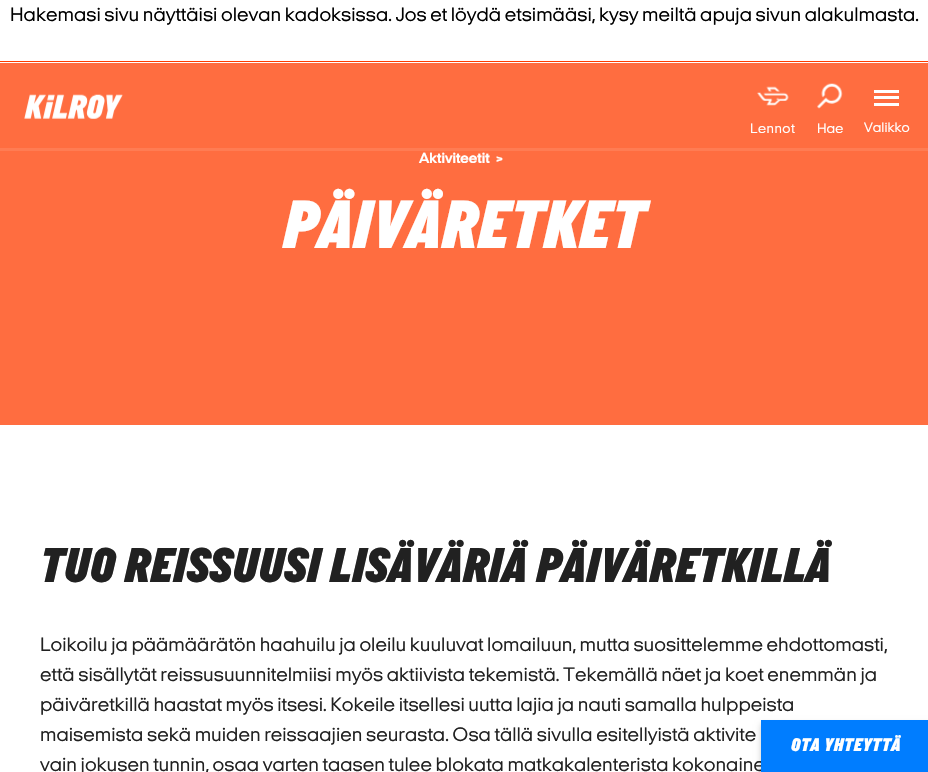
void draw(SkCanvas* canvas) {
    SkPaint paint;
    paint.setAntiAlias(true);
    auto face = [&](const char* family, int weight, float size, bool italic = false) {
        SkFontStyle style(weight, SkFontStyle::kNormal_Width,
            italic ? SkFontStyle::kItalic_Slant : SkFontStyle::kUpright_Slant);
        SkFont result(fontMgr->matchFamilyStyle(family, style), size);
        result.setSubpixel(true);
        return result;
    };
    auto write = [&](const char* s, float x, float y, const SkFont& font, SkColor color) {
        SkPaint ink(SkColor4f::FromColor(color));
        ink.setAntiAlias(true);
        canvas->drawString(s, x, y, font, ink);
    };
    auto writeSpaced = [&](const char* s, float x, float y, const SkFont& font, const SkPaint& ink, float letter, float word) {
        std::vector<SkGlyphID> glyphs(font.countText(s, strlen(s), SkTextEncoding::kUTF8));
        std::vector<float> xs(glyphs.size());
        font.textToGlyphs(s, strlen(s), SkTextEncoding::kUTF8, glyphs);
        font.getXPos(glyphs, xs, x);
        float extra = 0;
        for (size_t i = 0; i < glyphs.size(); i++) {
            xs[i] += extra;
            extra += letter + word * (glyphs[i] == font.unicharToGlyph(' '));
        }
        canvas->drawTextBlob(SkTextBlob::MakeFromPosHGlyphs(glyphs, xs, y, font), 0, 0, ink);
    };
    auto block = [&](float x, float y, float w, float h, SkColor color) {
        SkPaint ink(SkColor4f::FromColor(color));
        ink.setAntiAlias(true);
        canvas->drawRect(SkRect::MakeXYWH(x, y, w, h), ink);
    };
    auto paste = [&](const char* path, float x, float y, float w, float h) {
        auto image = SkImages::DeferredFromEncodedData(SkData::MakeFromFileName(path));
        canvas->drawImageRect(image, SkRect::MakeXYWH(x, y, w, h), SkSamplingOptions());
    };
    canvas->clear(SK_ColorWHITE);
    block(0, 61, 928, 1, SkColorSetRGB(255, 60, 0));
    auto kFont1 = face("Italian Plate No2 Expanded", 400, 20);
    write("Hakemasi sivu näyttäisi olevan kadoksissa. Jos et löydä etsimääsi, kysy meiltä apuja sivun alakulmasta.", 10, 21, kFont1, SK_ColorBLACK);
    block(0, 63, 928, 362, SkColorSetRGB(255, 109, 64));
    block(0, 148, 928, 3, SkColorSetRGB(255, 124, 83));
    paste("pic1.png", 24, 94, 99, 25);
    paste("pic2.png", 757, 86, 32, 20);
    auto kFont2 = face("Italian Plate No2 Expanded", 400, 14);
    paint.setColor(SK_ColorWHITE);
    writeSpaced("Lennot", 750, 133, kFont2, paint, 0.5f, 0);
    paste("pic3.png", 817, 83, 26, 26);
    write("Hae", 817, 133, kFont2, SK_ColorWHITE);
    block(874, 96, 25, 3, SK_ColorWHITE);
    block(874, 90, 25, 3, SK_ColorWHITE);
    block(874, 103, 25, 3, SK_ColorWHITE);
    write("Valikko", 864, 132, kFont2, SK_ColorWHITE);
    auto kFont3 = face("Italian Plate No2 Expanded", 700, 15);
    write("Aktiviteetit", 419, 163, kFont3, SK_ColorWHITE);
    write(">", 496, 163, kFont3, SK_ColorWHITE);
    auto kFont4 = face("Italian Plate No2", 900, 70, true);
    write("PÄIVÄRETKET", 283, 248, kFont4, SK_ColorWHITE);
    auto kFont5 = face("Italian Plate No2", 900, 50, true);
    write("TUO REISSUUSI LISÄVÄRIÄ PÄIVÄRETKILLÄ", 40, 582, kFont5, SkColorSetRGB(33, 33, 33));
    write("Loikoilu ja päämäärätön haahuilu ja oleilu kuuluvat lomailuun, mutta suosittelemme ehdottomasti,", 40, 651, kFont1, SkColorSetRGB(33, 33, 33));
    write("että sisällytät reissusuunnitelmiisi myös aktiivista tekemistä. Tekemällä näet ja koet enemmän ja", 40, 681, kFont1, SkColorSetRGB(33, 33, 33));
    write("päiväretkillä haastat myös itsesi. Kokeile itsellesi uutta lajia ja nauti samalla hulppeista", 40, 711, kFont1, SkColorSetRGB(33, 33, 33));
    write("maisemista sekä muiden reissaajien seurasta. Osa tällä sivulla esitellyistä aktivite", 40, 741, kFont1, SkColorSetRGB(33, 33, 33));
    write("vain jokusen tunnin, osaa varten taasen tulee blokata matkakalenterista kokonaine", 40, 771, kFont1, SkColorSetRGB(33, 33, 33));
    paint.setColor(SkColorSetARGB(51, 0, 0, 0));
    paint.setMaskFilter(SkMaskFilter::MakeBlur(kNormal_SkBlurStyle, 3));
    canvas->drawRect(SkRect::MakeXYWH(761, 724, 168, 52), paint);
    paint.setMaskFilter(nullptr);
    block(761, 720, 167, 52, SkColorSetRGB(0, 125, 255));
    auto kFont6 = face("Italian Plate No2", 900, 18.75f, true);
    paint.setColor(SK_ColorWHITE);
    writeSpaced("OTA YHTEYTTÄ", 791, 751, kFont6, paint, 0.5f, 0);
}
